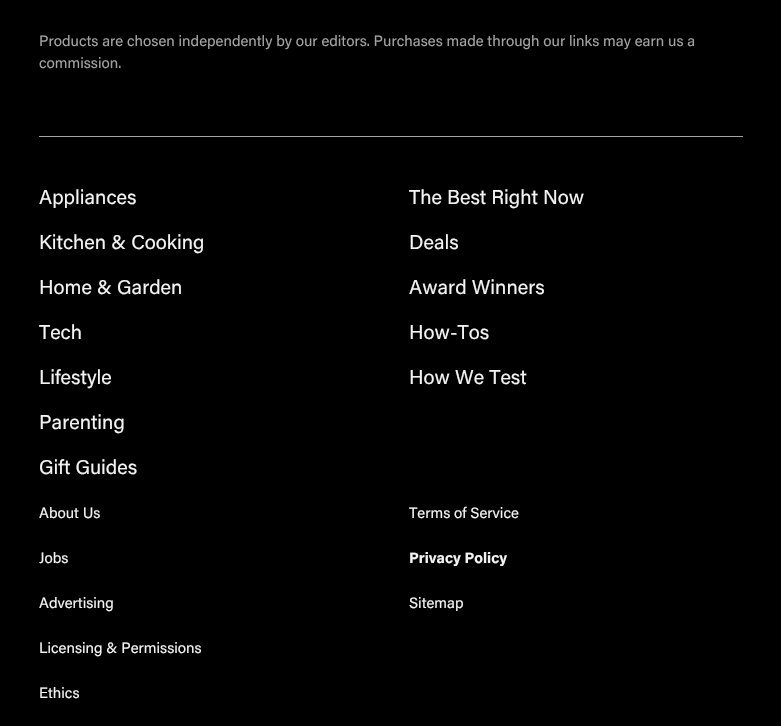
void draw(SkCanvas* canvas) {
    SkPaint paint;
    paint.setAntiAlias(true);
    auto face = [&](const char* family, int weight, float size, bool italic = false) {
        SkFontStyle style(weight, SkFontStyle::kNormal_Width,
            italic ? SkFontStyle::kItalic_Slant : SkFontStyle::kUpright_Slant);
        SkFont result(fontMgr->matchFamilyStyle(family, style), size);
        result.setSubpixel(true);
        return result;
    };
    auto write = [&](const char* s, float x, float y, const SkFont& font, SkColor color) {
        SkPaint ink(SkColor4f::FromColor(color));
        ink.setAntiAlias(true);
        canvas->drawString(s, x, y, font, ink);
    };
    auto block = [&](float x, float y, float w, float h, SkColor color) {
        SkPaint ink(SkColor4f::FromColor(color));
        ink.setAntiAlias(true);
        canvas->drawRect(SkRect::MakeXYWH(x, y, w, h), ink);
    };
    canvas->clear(SK_ColorBLACK);
    auto kFont1 = face("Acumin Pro", 400, 15);
    write("Products are chosen independently by our editors. Purchases made through our links may earn us a", 39, 46, kFont1, SkColorSetRGB(163, 163, 163));
    write("commission.", 39, 68, kFont1, SkColorSetRGB(163, 163, 163));
    block(39, 136, 704, 1, SkColorSetRGB(163, 163, 163));
    auto kFont2 = face("Acumin Pro", 400, 20);
    write("Appliances", 39, 204, kFont2, SkColorSetRGB(243, 243, 243));
    write("Kitchen & Cooking", 39, 249, kFont2, SkColorSetRGB(243, 243, 243));
    write("Home & Garden", 39, 294, kFont2, SkColorSetRGB(243, 243, 243));
    write("Tech", 39, 339, kFont2, SkColorSetRGB(243, 243, 243));
    write("Lifestyle", 39, 384, kFont2, SkColorSetRGB(243, 243, 243));
    write("Parenting", 39, 429, kFont2, SkColorSetRGB(243, 243, 243));
    write("Gift Guides", 39, 474, kFont2, SkColorSetRGB(243, 243, 243));
    write("The Best Right Now", 409, 204, kFont2, SkColorSetRGB(243, 243, 243));
    write("Deals", 409, 249, kFont2, SkColorSetRGB(243, 243, 243));
    write("Award Winners", 409, 294, kFont2, SkColorSetRGB(243, 243, 243));
    write("How-Tos", 409, 339, kFont2, SkColorSetRGB(243, 243, 243));
    write("How We Test", 409, 384, kFont2, SkColorSetRGB(243, 243, 243));
    write("About Us", 39, 518, kFont1, SkColorSetRGB(243, 243, 243));
    write("Jobs", 39, 563, kFont1, SkColorSetRGB(243, 243, 243));
    write("Advertising", 39, 608, kFont1, SkColorSetRGB(243, 243, 243));
    write("Licensing & Permissions", 39, 653, kFont1, SkColorSetRGB(243, 243, 243));
    write("Ethics", 39, 698, kFont1, SkColorSetRGB(243, 243, 243));
    write("Terms of Service", 409, 518, kFont1, SkColorSetRGB(243, 243, 243));
    auto kFont3 = face("Acumin Pro", 700, 15);
    write("Privacy Policy", 409, 563, kFont3, SkColorSetRGB(243, 243, 243));
    write("Sitemap", 409, 608, kFont1, SkColorSetRGB(243, 243, 243));
}
